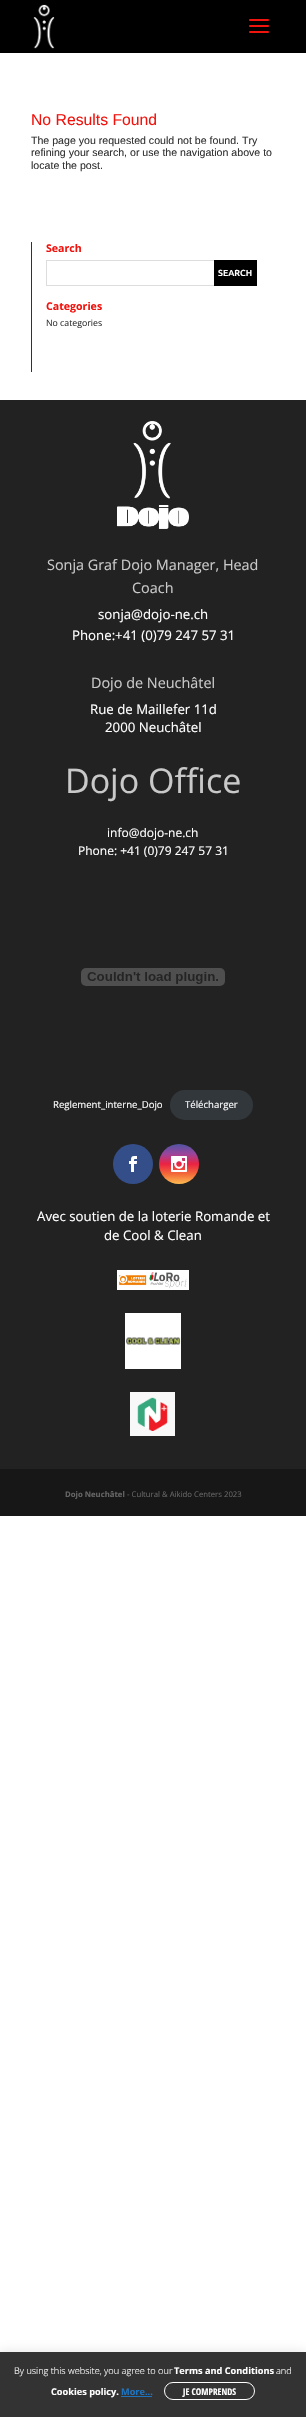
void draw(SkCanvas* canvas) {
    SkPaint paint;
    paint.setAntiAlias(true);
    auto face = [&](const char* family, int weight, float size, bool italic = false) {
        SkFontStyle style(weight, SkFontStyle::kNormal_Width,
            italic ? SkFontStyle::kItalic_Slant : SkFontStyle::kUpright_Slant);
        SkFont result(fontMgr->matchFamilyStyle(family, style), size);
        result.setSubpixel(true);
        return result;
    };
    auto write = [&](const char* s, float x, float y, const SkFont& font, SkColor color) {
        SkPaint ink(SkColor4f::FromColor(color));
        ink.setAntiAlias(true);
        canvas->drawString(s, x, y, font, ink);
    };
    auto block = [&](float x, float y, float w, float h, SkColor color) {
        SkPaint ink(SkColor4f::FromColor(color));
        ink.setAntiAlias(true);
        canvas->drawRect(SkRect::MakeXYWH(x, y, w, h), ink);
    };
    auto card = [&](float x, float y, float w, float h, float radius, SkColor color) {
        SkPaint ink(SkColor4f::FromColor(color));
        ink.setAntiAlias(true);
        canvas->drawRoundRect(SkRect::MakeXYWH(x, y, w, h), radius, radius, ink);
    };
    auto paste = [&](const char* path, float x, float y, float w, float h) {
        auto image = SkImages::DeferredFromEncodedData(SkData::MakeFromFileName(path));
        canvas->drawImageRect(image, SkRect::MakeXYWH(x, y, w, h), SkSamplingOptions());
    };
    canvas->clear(SK_ColorWHITE);
    block(0, 0, 306, 53, SK_ColorBLACK);
    paste("pic1.png", 33, 4, 22, 45);
    paste("pic2.png", 249, 19, 20, 14);
    auto kFont1 = face("Liberation Sans", 400, 15.75f);
    write("No Results Found", 31, 125, kFont1, SkColorSetRGB(241, 20, 14));
    auto kFont2 = face("Liberation Sans", 400, 10.6f);
    write("The page you requested could not be found. Try", 31, 144, kFont2, SkColorSetRGB(50, 50, 50));
    write("refining your search, or use the navigation above to", 31, 156, kFont2, SkColorSetRGB(50, 50, 50));
    write("locate the post.", 31, 169, kFont2, SkColorSetRGB(50, 50, 50));
    block(31, 242, 1, 130, SkColorSetRGB(50, 50, 50));
    auto kFont3 = face("Open Sans", 700, 10.6f);
    write("Search", 46, 252, kFont3, SkColorSetRGB(241, 20, 14));
    paint.setStyle(SkPaint::kStroke_Style);
    paint.setStrokeWidth(1);
    paint.setColor(SkColorSetRGB(221, 221, 221));
    canvas->drawRect(SkRect::MakeXYWH(46.5f, 260.5f, 210, 25), paint);
    block(214, 260, 43, 26, SK_ColorBLACK);
    auto kFont4 = face("Ubuntu", 700, 8.75f);
    write("SEARCH", 218, 276, kFont4, SK_ColorWHITE);
    write("Categories", 46, 310, kFont3, SkColorSetRGB(241, 20, 14));
    auto kFont5 = face("Open Sans", 400, 8.75f);
    write("No categories", 46, 326, kFont5, SkColorSetRGB(50, 50, 50));
    block(0, 400, 306, 1069, SkColorSetRGB(34, 34, 34));
    paste("pic3.png", 117, 421, 72, 108);
    auto kFont6 = face("Open Sans", 400, 14.4f);
    write("Sonja Graf Dojo Manager, Head", 47, 570, kFont6, SkColorSetRGB(201, 201, 201));
    write("Coach", 132, 593, kFont6, SkColorSetRGB(201, 201, 201));
    auto kFont7 = face("Open Sans", 400, 13.25f);
    write("sonja@dojo-ne.ch", 98, 619, kFont7, SK_ColorWHITE);
    write("Phone:+41 (0)79 247 57 31", 72, 640, kFont7, SK_ColorWHITE);
    write("Dojo de Neuchâtel", 91, 688, kFont6, SkColorSetRGB(201, 201, 201));
    write("Rue de Maillefer 11d", 90, 714, kFont7, SK_ColorWHITE);
    write("2000 Neuchâtel", 105, 732, kFont7, SK_ColorWHITE);
    auto kFont8 = face("Open Sans", 400, 34);
    write("Dojo Office", 65, 793, kFont8, SkColorSetRGB(201, 201, 201));
    auto kFont9 = face("Open Sans", 400, 12);
    write("info@dojo-ne.ch", 107, 837, kFont9, SK_ColorWHITE);
    write("Phone: +41 (0)79 247 57 31", 78, 855, kFont9, SK_ColorWHITE);
    paste("pic4.png", 81, 968, 144, 18);
    auto kFont10 = face("Open Sans", 400, 9.6f);
    write("Reglement_interne_Dojo", 53, 1108, kFont10, SK_ColorWHITE);
    card(170, 1090, 83, 30, 15, SkColorSetRGB(50, 55, 60));
    write("Télécharger", 185, 1108, kFont10, SK_ColorWHITE);
    paint.setStyle(SkPaint::kFill_Style);
    paint.setColor(SkColorSetRGB(52, 78, 138));
    canvas->drawCircle(133, 1164, 20, paint);
    paste("pic5.png", 129, 1156, 8, 16);
    {
        const SkColor colors[] = {SkColorSetRGB(81, 84, 163), SkColorSetRGB(156, 69, 156), SkColorSetRGB(235, 34, 67), SkColorSetRGB(243, 106, 56), SkColorSetRGB(252, 187, 82)};
        const float stops[] = {0, 0.25f, 0.5f, 0.75f, 1};
        const SkPoint ends[] = {{179, 1144}, {179, 1184}};
        paint.setShader(SkGradientShader::MakeLinear(ends, colors, stops, 5, SkTileMode::kClamp));
        paint.setAlpha(255);
    }
    canvas->drawCircle(179, 1164, 20, paint);
    paste("pic6.png", 171, 1156, 16, 16);
    write("Avec soutien de la loterie Romande et", 37, 1221, kFont7, SK_ColorWHITE);
    write("de Cool & Clean", 104, 1240, kFont7, SK_ColorWHITE);
    paste("pic7.png", 117, 1270, 72, 20);
    paste("pic8.png", 125, 1313, 56, 56);
    paste("pic9.png", 130, 1392, 45, 44);
    block(0, 1469, 306, 47, SkColorSetRGB(23, 23, 23));
    auto kFont11 = face("Open Sans", 700, 7.75f);
    write("Dojo Neuchâtel", 65, 1497, kFont11, SkColorSetRGB(102, 102, 102));
    auto kFont12 = face("Open Sans", 400, 7.75f);
    write("- Cultural & Aikido Centers 2023", 127, 1497, kFont12, SkColorSetRGB(102, 102, 102));
    paint.setShader(nullptr);
    paint.setColor(SkColorSetARGB(77, 172, 171, 171));
    paint.setMaskFilter(SkMaskFilter::MakeBlur(kNormal_SkBlurStyle, 5));
    canvas->drawRect(SkRect::MakeXYWH(0, 2351, 306, 65), paint);
    paint.setMaskFilter(nullptr);
    block(0, 2352, 306, 65, SkColorSetRGB(51, 51, 51));
    auto kFont13 = face("Open Sans", 300, 9.2f);
    write("By using this website, you agree to our", 14, 2374, kFont13, SK_ColorWHITE);
    auto kFont14 = face("Open Sans", 700, 9.2f);
    write("Terms and Conditions", 174, 2374, kFont14, SK_ColorWHITE);
    write("and", 276, 2374, kFont13, SK_ColorWHITE);
    write("Cookies policy.", 51, 2395, kFont14, SK_ColorWHITE);
    write("More...", 121, 2395, kFont14, SkColorSetRGB(30, 115, 190));
    block(121, 2396, 31, 1, SkColorSetRGB(30, 115, 190));
    paint.setStyle(SkPaint::kStroke_Style);
    paint.setColor(SK_ColorWHITE);
    canvas->drawRoundRect(SkRect::MakeXYWH(164.5f, 2382.5f, 90, 17), 8.5f, 8.5f, paint);
    auto kFont15 = face("Open Sans Condensed", 700, 9.2f);
    write("JE COMPRENDS", 183, 2395, kFont15, SK_ColorWHITE);
}
